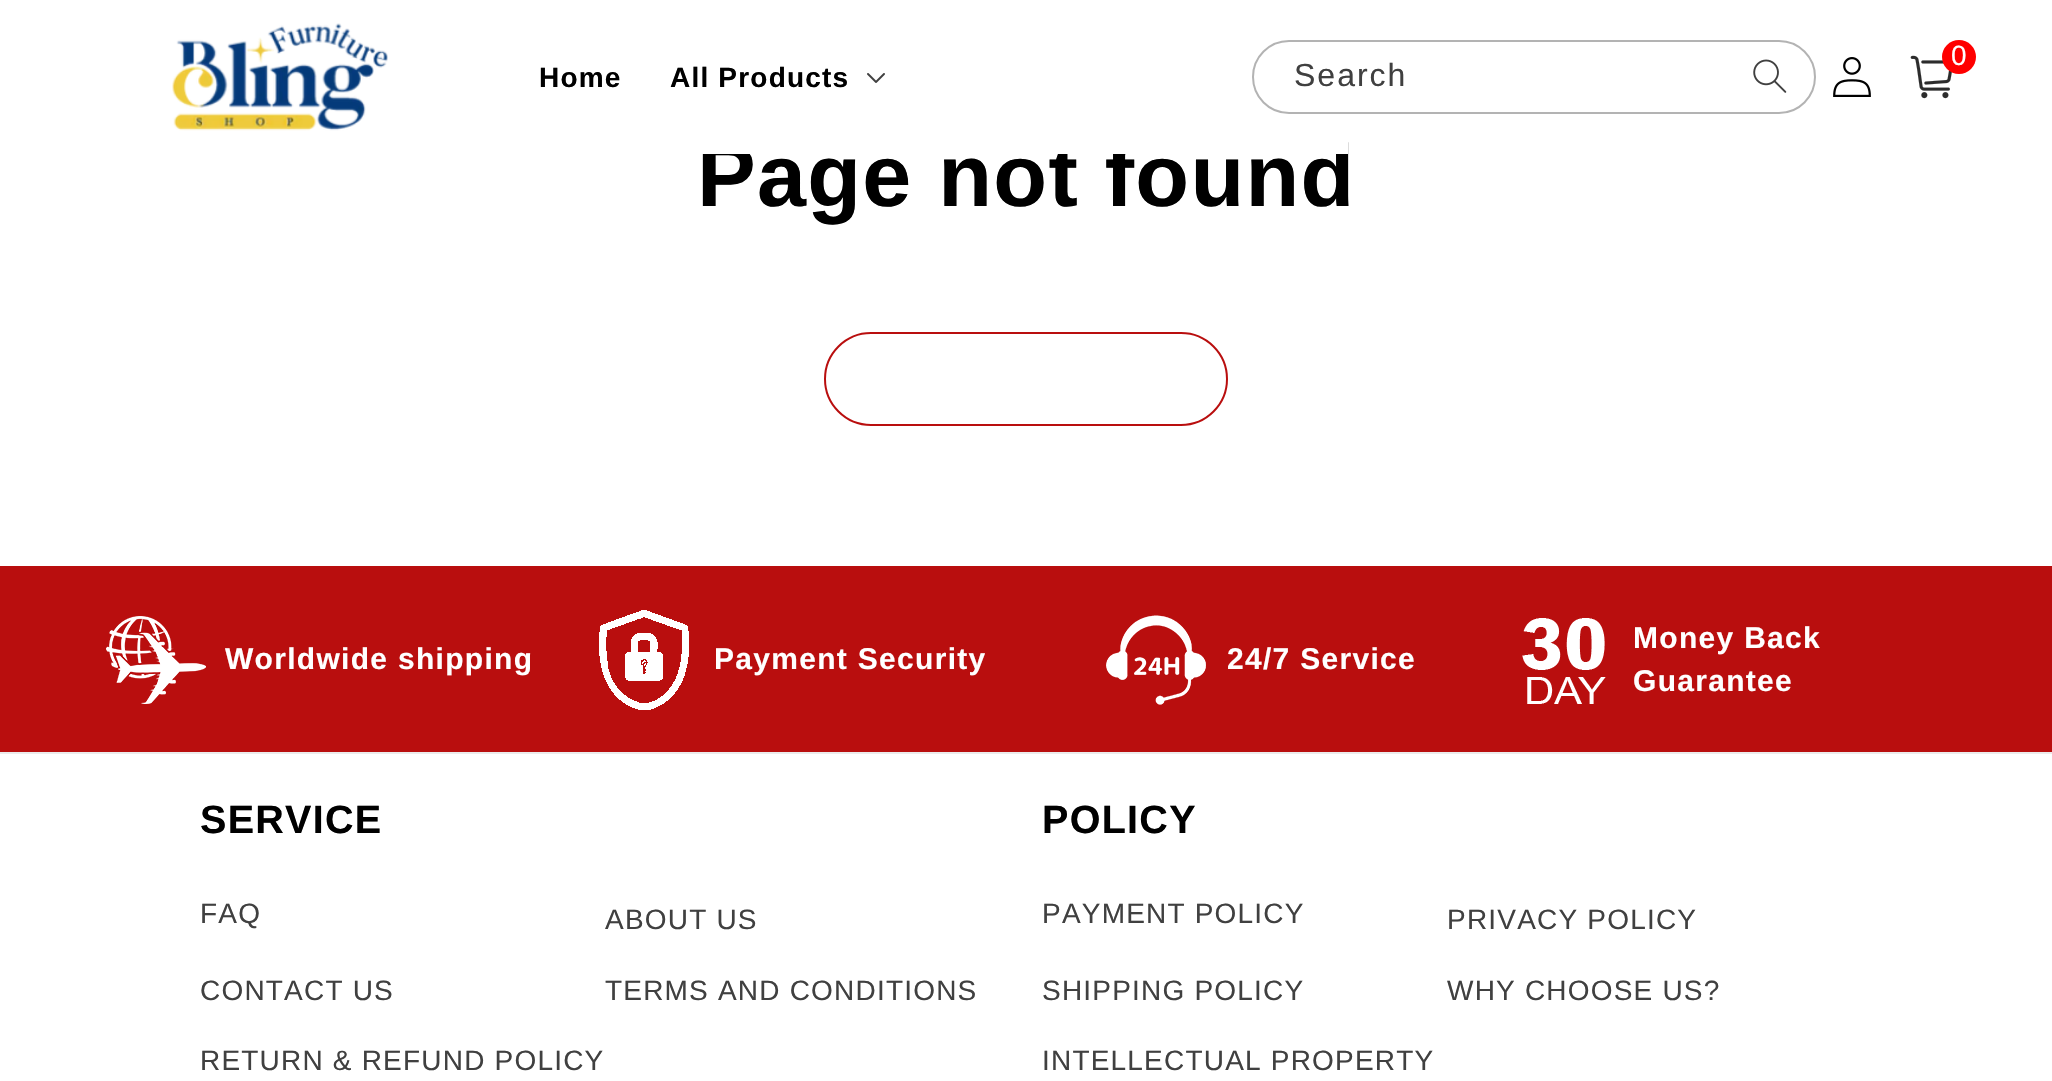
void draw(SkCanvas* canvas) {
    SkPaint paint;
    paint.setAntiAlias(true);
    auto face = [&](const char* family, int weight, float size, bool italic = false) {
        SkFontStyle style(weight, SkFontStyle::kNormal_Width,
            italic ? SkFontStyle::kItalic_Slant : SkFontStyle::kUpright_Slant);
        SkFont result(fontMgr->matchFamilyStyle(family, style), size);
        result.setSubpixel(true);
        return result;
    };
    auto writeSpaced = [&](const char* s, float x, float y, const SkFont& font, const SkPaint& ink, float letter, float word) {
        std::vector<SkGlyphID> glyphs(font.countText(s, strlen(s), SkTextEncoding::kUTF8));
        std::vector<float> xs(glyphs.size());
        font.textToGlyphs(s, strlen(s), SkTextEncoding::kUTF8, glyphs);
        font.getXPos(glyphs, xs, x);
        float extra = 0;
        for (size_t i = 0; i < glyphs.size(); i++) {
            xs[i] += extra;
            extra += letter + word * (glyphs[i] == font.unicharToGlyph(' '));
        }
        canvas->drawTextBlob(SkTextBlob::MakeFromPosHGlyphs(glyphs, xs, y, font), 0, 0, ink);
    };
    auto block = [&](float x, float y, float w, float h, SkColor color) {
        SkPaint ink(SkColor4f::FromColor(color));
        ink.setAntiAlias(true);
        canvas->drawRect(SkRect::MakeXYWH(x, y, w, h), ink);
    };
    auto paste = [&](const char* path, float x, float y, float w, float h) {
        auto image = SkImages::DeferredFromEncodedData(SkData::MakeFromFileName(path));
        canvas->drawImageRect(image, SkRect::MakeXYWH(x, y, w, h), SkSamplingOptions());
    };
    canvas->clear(SK_ColorWHITE);
    auto kFont1 = face("Liberation Sans", 700, 88);
    paint.setColor(SK_ColorBLACK);
    writeSpaced("Page not found", 697, 206, kFont1, paint, 1.3f, 0);
    block(702, 142, 646, 12, SK_ColorWHITE);
    paste("pic1.png", 172, 23, 216, 108);
    auto kFont2 = face("Liberation Sans", 700, 28);
    writeSpaced("Home", 539, 87, kFont2, paint, 1.2f, 0);
    writeSpaced("All Products", 670, 87, kFont2, paint, 1.2f, 0);
    paste("pic2.png", 867, 73, 18, 10);
    paste("pic3.png", 1753, 59, 34, 34);
    paint.setStyle(SkPaint::kStroke_Style);
    paint.setStrokeWidth(2);
    paint.setColor(SkColorSetRGB(179, 179, 179));
    canvas->drawRoundRect(SkRect::MakeXYWH(1253, 41, 562, 72), 36, 36, paint);
    auto kFont3 = face("Liberation Sans", 400, 32);
    paint.setStyle(SkPaint::kFill_Style);
    paint.setColor(SkColorSetRGB(64, 64, 64));
    writeSpaced("Search", 1294, 86, kFont3, paint, 2, 0);
    paste("pic4.png", 1833, 57, 38, 40);
    paste("pic5.png", 1910, 55, 42, 44);
    paint.setColor(SkColorSetRGB(255, 0, 0));
    canvas->drawCircle(1959, 57, 17, paint);
    auto kFont4 = face("Liberation Sans", 400, 28);
    paint.setColor(SK_ColorWHITE);
    writeSpaced("0", 1951, 65, kFont4, paint, 1.2f, 0);
    paint.setStyle(SkPaint::kStroke_Style);
    paint.setColor(SkColorSetRGB(185, 14, 14));
    canvas->drawRoundRect(SkRect::MakeXYWH(825, 333, 402, 92), 46, 46, paint);
    block(0, 566, 2052, 186, SkColorSetRGB(185, 14, 14));
    paste("pic6.png", 106, 616, 100, 88);
    auto kFont5 = face("Liberation Sans", 700, 30);
    paint.setStyle(SkPaint::kFill_Style);
    paint.setColor(SK_ColorWHITE);
    writeSpaced("Worldwide shipping", 225, 669, kFont5, paint, 1.3f, 0);
    paste("pic7.png", 599, 610, 90, 100);
    writeSpaced("Payment Security", 714, 669, kFont5, paint, 1.3f, 0);
    paste("pic8.png", 1106, 615, 100, 90);
    writeSpaced("24/7 Service", 1227, 669, kFont5, paint, 1.3f, 0);
    paste("pic9.png", 1522, 618, 84, 86);
    writeSpaced("Money Back", 1633, 648, kFont5, paint, 1.3f, 0);
    writeSpaced("Guarantee", 1633, 691, kFont5, paint, 1.3f, 0);
    block(0, 752, 2052, 2, SkColorSetRGB(235, 235, 235));
    auto kFont6 = face("Liberation Sans", 700, 39.5f);
    paint.setColor(SK_ColorBLACK);
    writeSpaced("SERVICE", 200, 833, kFont6, paint, 1.3f, 0);
    paint.setColor(SkColorSetRGB(64, 64, 64));
    writeSpaced("FAQ", 200, 923, kFont4, paint, 1.2f, 0);
    writeSpaced("ABOUT US", 605, 929, kFont4, paint, 1.2f, 0);
    writeSpaced("CONTACT US", 200, 1000, kFont4, paint, 1.2f, 0);
    writeSpaced("TERMS AND CONDITIONS", 605, 1000, kFont4, paint, 1.2f, 0);
    writeSpaced("RETURN & REFUND POLICY", 200, 1070, kFont4, paint, 1.2f, 0);
    paint.setColor(SK_ColorBLACK);
    writeSpaced("POLICY", 1042, 833, kFont6, paint, 1.3f, 0);
    paint.setColor(SkColorSetRGB(64, 64, 64));
    writeSpaced("PAYMENT POLICY", 1042, 923, kFont4, paint, 1.2f, 0);
    writeSpaced("PRIVACY POLICY", 1447, 929, kFont4, paint, 1.2f, 0);
    writeSpaced("SHIPPING POLICY", 1042, 1000, kFont4, paint, 1.2f, 0);
    writeSpaced("WHY CHOOSE US?", 1447, 1000, kFont4, paint, 1.2f, 0);
    writeSpaced("INTELLECTUAL PROPERTY", 1042, 1070, kFont4, paint, 1.2f, 0);
}
